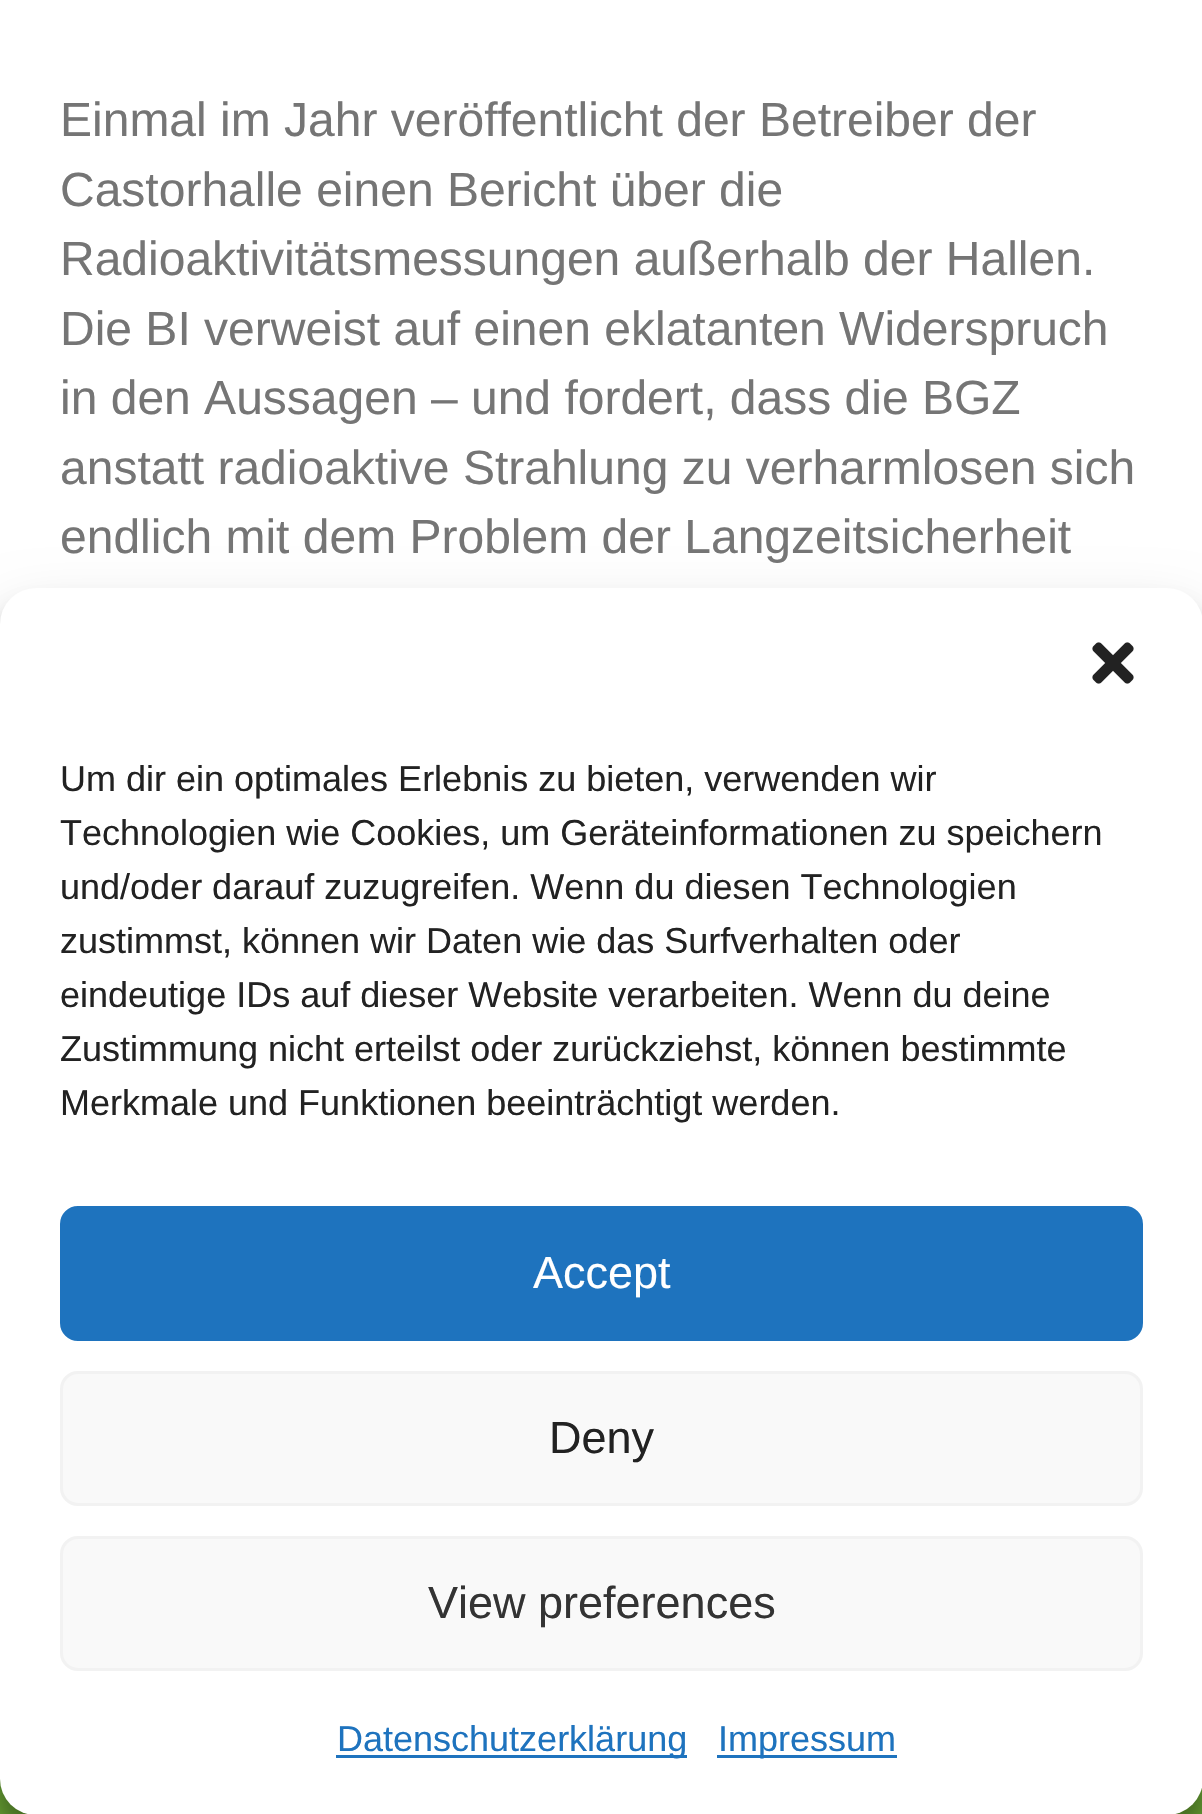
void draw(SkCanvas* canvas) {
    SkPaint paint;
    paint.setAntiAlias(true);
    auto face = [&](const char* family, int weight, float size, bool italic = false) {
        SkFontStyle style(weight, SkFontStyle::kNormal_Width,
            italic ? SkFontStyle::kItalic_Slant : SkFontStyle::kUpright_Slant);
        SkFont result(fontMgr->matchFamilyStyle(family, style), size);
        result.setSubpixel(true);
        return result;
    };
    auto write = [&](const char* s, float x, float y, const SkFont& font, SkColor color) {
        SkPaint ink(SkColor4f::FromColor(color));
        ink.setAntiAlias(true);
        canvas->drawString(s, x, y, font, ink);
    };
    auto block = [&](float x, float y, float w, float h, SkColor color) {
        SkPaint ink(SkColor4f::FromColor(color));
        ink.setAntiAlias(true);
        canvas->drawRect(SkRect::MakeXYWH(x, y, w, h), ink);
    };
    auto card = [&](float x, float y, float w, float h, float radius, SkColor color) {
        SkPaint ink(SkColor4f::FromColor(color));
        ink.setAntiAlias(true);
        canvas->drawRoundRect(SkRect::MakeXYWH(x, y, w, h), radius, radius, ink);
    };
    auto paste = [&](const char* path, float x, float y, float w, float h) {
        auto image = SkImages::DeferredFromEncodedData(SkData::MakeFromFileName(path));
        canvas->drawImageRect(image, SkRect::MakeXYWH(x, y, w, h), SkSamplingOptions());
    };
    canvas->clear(SK_ColorWHITE);
    auto kFont1 = face("Liberation Sans", 400, 48);
    write("Einmal im Jahr veröffentlicht der Betreiber der", 60, 136, kFont1, SkColorSetRGB(117, 117, 117));
    write("Castorhalle einen Bericht über die", 60, 206, kFont1, SkColorSetRGB(117, 117, 117));
    write("Radioaktivitätsmessungen außerhalb der Hallen.", 60, 275, kFont1, SkColorSetRGB(117, 117, 117));
    write("Die BI verweist auf einen eklatanten Widerspruch", 60, 345, kFont1, SkColorSetRGB(117, 117, 117));
    write("in den Aussagen – und fordert, dass die BGZ", 60, 414, kFont1, SkColorSetRGB(117, 117, 117));
    write("anstatt radioaktive Strahlung zu verharmlosen sich", 60, 484, kFont1, SkColorSetRGB(117, 117, 117));
    write("endlich mit dem Problem der Langzeitsicherheit", 60, 553, kFont1, SkColorSetRGB(117, 117, 117));
    block(0, 1779, 1202, 35, SkColorSetRGB(105, 164, 52));
    paint.setColor(SkColorSetARGB(59, 0, 0, 0));
    paint.setMaskFilter(SkMaskFilter::MakeBlur(kNormal_SkBlurStyle, 9));
    canvas->drawRoundRect(SkRect::MakeXYWH(0, 606, 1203, 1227), 36, 36, paint);
    paint.setMaskFilter(nullptr);
    paint.setColor(SkColorSetARGB(48, 0, 0, 0));
    paint.setMaskFilter(SkMaskFilter::MakeBlur(kNormal_SkBlurStyle, 30));
    canvas->drawRoundRect(SkRect::MakeXYWH(0, 618, 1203, 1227), 36, 36, paint);
    paint.setMaskFilter(nullptr);
    card(0, 588, 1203, 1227, 36, SK_ColorWHITE);
    paste("pic1.png", 1092, 642, 42, 42);
    auto kFont2 = face("Liberation Sans", 400, 36);
    write("Um dir ein optimales Erlebnis zu bieten, verwenden wir", 60, 791, kFont2, SkColorSetRGB(34, 34, 34));
    write("Technologien wie Cookies, um Geräteinformationen zu speichern", 60, 845, kFont2, SkColorSetRGB(34, 34, 34));
    write("und/oder darauf zuzugreifen. Wenn du diesen Technologien", 60, 899, kFont2, SkColorSetRGB(34, 34, 34));
    write("zustimmst, können wir Daten wie das Surfverhalten oder", 60, 953, kFont2, SkColorSetRGB(34, 34, 34));
    write("eindeutige IDs auf dieser Website verarbeiten. Wenn du deine", 60, 1007, kFont2, SkColorSetRGB(34, 34, 34));
    write("Zustimmung nicht erteilst oder zurückziehst, können bestimmte", 60, 1061, kFont2, SkColorSetRGB(34, 34, 34));
    write("Merkmale und Funktionen beeinträchtigt werden.", 60, 1115, kFont2, SkColorSetRGB(34, 34, 34));
    paint.setColor(SkColorSetRGB(30, 115, 190));
    canvas->drawRoundRect(SkRect::MakeXYWH(61.5f, 1207.5f, 1080, 132), 16.5f, 16.5f, paint);
    paint.setStyle(SkPaint::kStroke_Style);
    paint.setStrokeWidth(3);
    canvas->drawRoundRect(SkRect::MakeXYWH(61.5f, 1207.5f, 1080, 132), 16.5f, 16.5f, paint);
    auto kFont3 = face("Liberation Sans", 400, 45);
    write("Accept", 533, 1288, kFont3, SK_ColorWHITE);
    paint.setStyle(SkPaint::kFill_Style);
    paint.setColor(SkColorSetRGB(249, 249, 249));
    canvas->drawRoundRect(SkRect::MakeXYWH(61.5f, 1372.5f, 1080, 132), 16.5f, 16.5f, paint);
    paint.setStyle(SkPaint::kStroke_Style);
    paint.setColor(SkColorSetRGB(242, 242, 242));
    canvas->drawRoundRect(SkRect::MakeXYWH(61.5f, 1372.5f, 1080, 132), 16.5f, 16.5f, paint);
    write("Deny", 549, 1453, kFont3, SkColorSetRGB(34, 34, 34));
    paint.setStyle(SkPaint::kFill_Style);
    paint.setColor(SkColorSetRGB(249, 249, 249));
    canvas->drawRoundRect(SkRect::MakeXYWH(61.5f, 1537.5f, 1080, 132), 16.5f, 16.5f, paint);
    paint.setStyle(SkPaint::kStroke_Style);
    paint.setColor(SkColorSetRGB(242, 242, 242));
    canvas->drawRoundRect(SkRect::MakeXYWH(61.5f, 1537.5f, 1080, 132), 16.5f, 16.5f, paint);
    write("View preferences", 428, 1618, kFont3, SkColorSetRGB(51, 51, 51));
    block(336, 1755, 351, 3, SkColorSetRGB(30, 115, 190));
    write("Datenschutzerklärung", 337, 1751, kFont2, SkColorSetRGB(30, 115, 190));
    block(717, 1755, 180, 3, SkColorSetRGB(30, 115, 190));
    write("Impressum", 718, 1751, kFont2, SkColorSetRGB(30, 115, 190));
}
